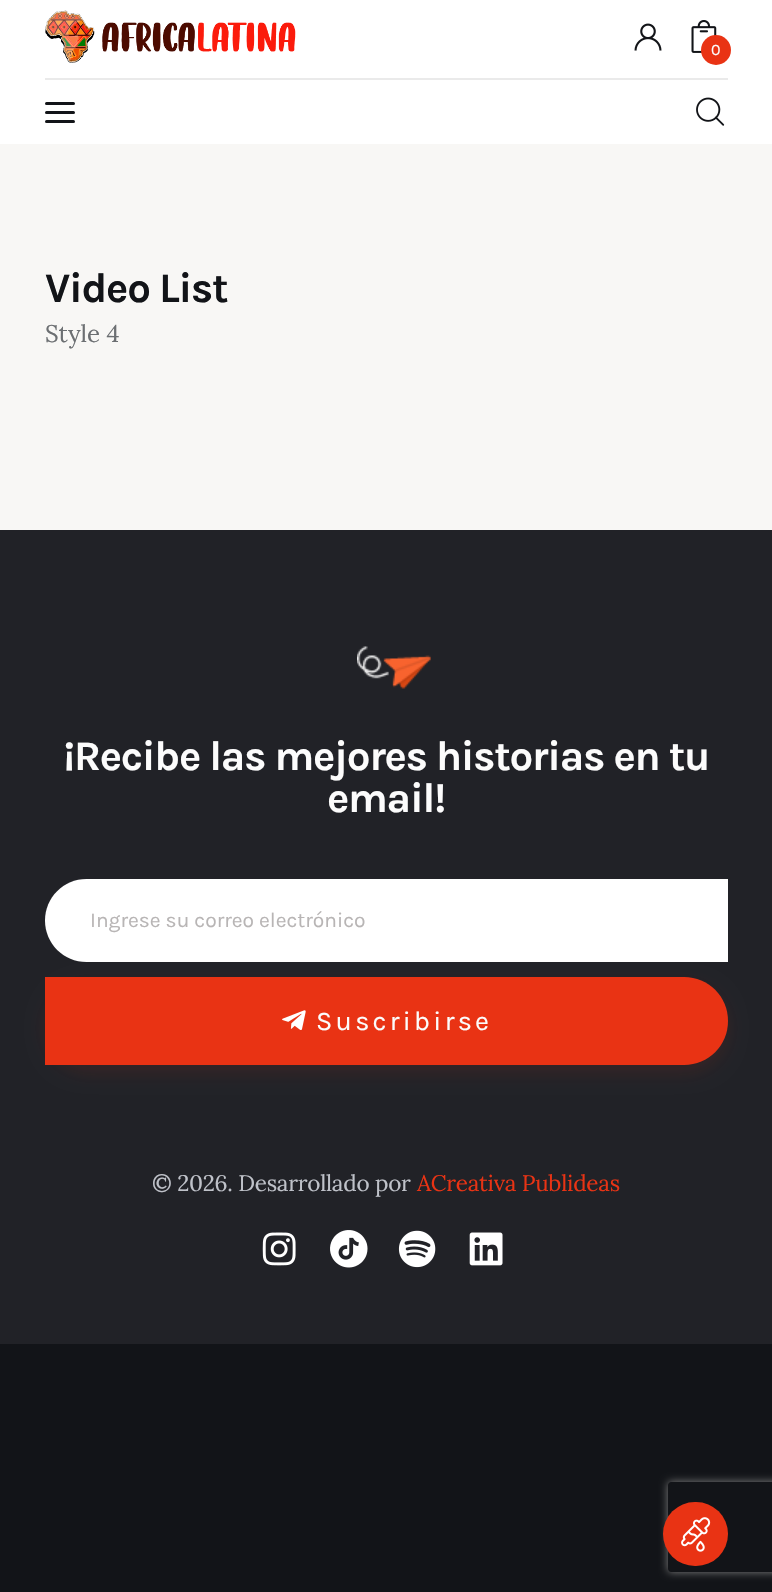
void draw(SkCanvas* canvas) {
    SkPaint paint;
    paint.setAntiAlias(true);
    auto face = [&](const char* family, int weight, float size, bool italic = false) {
        SkFontStyle style(weight, SkFontStyle::kNormal_Width,
            italic ? SkFontStyle::kItalic_Slant : SkFontStyle::kUpright_Slant);
        SkFont result(fontMgr->matchFamilyStyle(family, style), size);
        result.setSubpixel(true);
        return result;
    };
    auto write = [&](const char* s, float x, float y, const SkFont& font, SkColor color) {
        SkPaint ink(SkColor4f::FromColor(color));
        ink.setAntiAlias(true);
        canvas->drawString(s, x, y, font, ink);
    };
    auto writeSpaced = [&](const char* s, float x, float y, const SkFont& font, const SkPaint& ink, float letter, float word) {
        std::vector<SkGlyphID> glyphs(font.countText(s, strlen(s), SkTextEncoding::kUTF8));
        std::vector<float> xs(glyphs.size());
        font.textToGlyphs(s, strlen(s), SkTextEncoding::kUTF8, glyphs);
        font.getXPos(glyphs, xs, x);
        float extra = 0;
        for (size_t i = 0; i < glyphs.size(); i++) {
            xs[i] += extra;
            extra += letter + word * (glyphs[i] == font.unicharToGlyph(' '));
        }
        canvas->drawTextBlob(SkTextBlob::MakeFromPosHGlyphs(glyphs, xs, y, font), 0, 0, ink);
    };
    auto block = [&](float x, float y, float w, float h, SkColor color) {
        SkPaint ink(SkColor4f::FromColor(color));
        ink.setAntiAlias(true);
        canvas->drawRect(SkRect::MakeXYWH(x, y, w, h), ink);
    };
    auto card = [&](float x, float y, float w, float h, float radius, SkColor color) {
        SkPaint ink(SkColor4f::FromColor(color));
        ink.setAntiAlias(true);
        canvas->drawRoundRect(SkRect::MakeXYWH(x, y, w, h), radius, radius, ink);
    };
    auto paste = [&](const char* path, float x, float y, float w, float h) {
        auto image = SkImages::DeferredFromEncodedData(SkData::MakeFromFileName(path));
        canvas->drawImageRect(image, SkRect::MakeXYWH(x, y, w, h), SkSamplingOptions());
    };
    canvas->clear(SK_ColorWHITE);
    paste("pic1.png", 45, 10, 251, 53);
    paste("pic2.png", 634, 23, 28, 28);
    paste("pic3.png", 691, 20, 26, 33);
    paint.setColor(SkColorSetRGB(233, 51, 20));
    canvas->drawCircle(716, 50, 15, paint);
    auto kFont1 = face("Karla", 400, 16);
    write("0", 711, 55, kFont1, SkColorSetRGB(252, 252, 252));
    block(45, 78, 683, 2, SkColorSetRGB(234, 234, 234));
    card(45, 102, 30, 3, 1.5f, SkColorSetRGB(18, 20, 24));
    card(45, 111, 30, 3, 1.5f, SkColorSetRGB(18, 20, 24));
    card(45, 120, 30, 3, 1.5f, SkColorSetRGB(18, 20, 24));
    paste("pic4.png", 696, 97, 29, 29);
    block(0, 144, 772, 386, SkColorSetRGB(248, 247, 245));
    auto kFont2 = face("Karla", 700, 42);
    paint.setColor(SkColorSetRGB(18, 20, 24));
    writeSpaced("Video List", 45, 302, kFont2, paint, -1.25f, 0);
    auto kFont3 = face("Lora", 400, 24);
    write("Style 4", 45, 342, kFont3, SkColorSetRGB(108, 111, 114));
    block(0, 1344, 772, 248, SkColorSetRGB(18, 20, 24));
    block(0, 530, 772, 814, SkColorSetRGB(33, 34, 39));
    paste("pic5.png", 357, 646, 74, 43);
    paint.setColor(SkColorSetRGB(252, 252, 252));
    writeSpaced("¡Recibe las mejores historias en tu", 63, 770, kFont2, paint, -1.25f, 0);
    writeSpaced("email!", 327, 812, kFont2, paint, -1.25f, 0);
    paint.setColor(SK_ColorWHITE);
    canvas->drawPath(SkPathBuilder().moveTo(86.5f, 879).lineTo(728, 879).lineTo(728, 962).lineTo(86.5f, 962).cubicTo(63.5f, 962, 45, 943.5f, 45, 920.5f).cubicTo(45, 897.5f, 63.5f, 879, 86.5f, 879).close().detach(), paint);
    auto kFont4 = face("Karla", 400, 21);
    write("Ingrese su correo electrónico", 90, 927, kFont4, SkColorSetRGB(184, 181, 181));
    paint.setColor(SkColorSetARGB(26, 233, 51, 20));
    paint.setMaskFilter(SkMaskFilter::MakeBlur(kNormal_SkBlurStyle, 9));
    canvas->drawRoundRect(SkRect::MakeXYWH(45, 984, 683, 89), 44.5f, 44.5f, paint);
    paint.setMaskFilter(nullptr);
    paint.setColor(SkColorSetRGB(233, 51, 20));
    canvas->drawPath(SkPathBuilder().moveTo(45, 977).lineTo(684, 977).cubicTo(708.5f, 977, 728, 996.5f, 728, 1021).cubicTo(728, 1045.5f, 708.5f, 1065, 684, 1065).lineTo(45, 1065).close().detach(), paint);
    paste("pic6.png", 282, 1010, 24, 20);
    auto kFont5 = face("Karla", 400, 27);
    paint.setColor(SkColorSetRGB(252, 252, 252));
    writeSpaced("Suscribirse", 316, 1030, kFont5, paint, 3.25f, 0);
    auto kFont6 = face("Lora", 400, 22.5f);
    paint.setColor(SkColorSetRGB(191, 194, 201));
    writeSpaced("© 2026. Desarrollado por", 152, 1191, kFont6, paint, -0.25f, 0);
    paint.setColor(SkColorSetRGB(233, 51, 20));
    writeSpaced("ACreativa Publideas", 417, 1191, kFont6, paint, -0.25f, 0);
    paste("pic7.png", 262, 1232, 34, 34);
    paste("pic8.png", 330, 1230, 38, 38);
    paste("pic9.png", 398, 1230, 38, 38);
    paste("pic10.png", 469, 1232, 34, 34);
    canvas->save();
    canvas->clipPath(SkPathBuilder(SkPathFillType::kEvenOdd).moveTo(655, 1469).lineTo(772, 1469).lineTo(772, 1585).lineTo(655, 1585).close().moveTo(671, 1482).lineTo(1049, 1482).cubicTo(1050.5f, 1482, 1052, 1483.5f, 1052, 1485).lineTo(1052, 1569).cubicTo(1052, 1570.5f, 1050.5f, 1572, 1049, 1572).lineTo(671, 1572).cubicTo(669.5f, 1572, 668, 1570.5f, 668, 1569).lineTo(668, 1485).cubicTo(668, 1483.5f, 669.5f, 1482, 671, 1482).close().detach(), true);
    paint.setColor(SkColorSetRGB(128, 128, 128));
    paint.setMaskFilter(SkMaskFilter::MakeBlur(kNormal_SkBlurStyle, 4));
    canvas->drawRoundRect(SkRect::MakeXYWH(668, 1482, 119, 90), 3, 3, paint);
    paint.setMaskFilter(nullptr);
    canvas->restore();
    card(663, 1502, 65, 64, 32, SkColorSetRGB(233, 51, 20));
    paste("pic11.png", 681, 1517, 30, 35);
}
